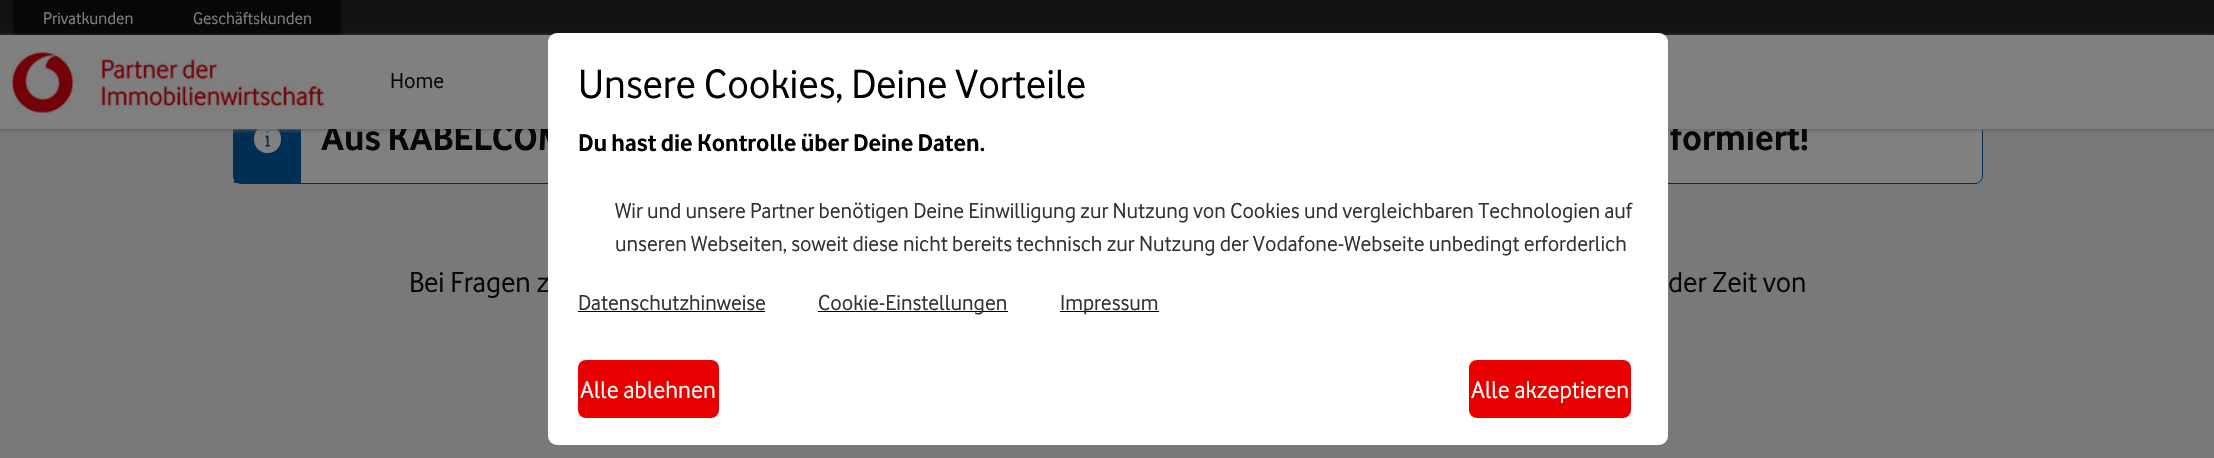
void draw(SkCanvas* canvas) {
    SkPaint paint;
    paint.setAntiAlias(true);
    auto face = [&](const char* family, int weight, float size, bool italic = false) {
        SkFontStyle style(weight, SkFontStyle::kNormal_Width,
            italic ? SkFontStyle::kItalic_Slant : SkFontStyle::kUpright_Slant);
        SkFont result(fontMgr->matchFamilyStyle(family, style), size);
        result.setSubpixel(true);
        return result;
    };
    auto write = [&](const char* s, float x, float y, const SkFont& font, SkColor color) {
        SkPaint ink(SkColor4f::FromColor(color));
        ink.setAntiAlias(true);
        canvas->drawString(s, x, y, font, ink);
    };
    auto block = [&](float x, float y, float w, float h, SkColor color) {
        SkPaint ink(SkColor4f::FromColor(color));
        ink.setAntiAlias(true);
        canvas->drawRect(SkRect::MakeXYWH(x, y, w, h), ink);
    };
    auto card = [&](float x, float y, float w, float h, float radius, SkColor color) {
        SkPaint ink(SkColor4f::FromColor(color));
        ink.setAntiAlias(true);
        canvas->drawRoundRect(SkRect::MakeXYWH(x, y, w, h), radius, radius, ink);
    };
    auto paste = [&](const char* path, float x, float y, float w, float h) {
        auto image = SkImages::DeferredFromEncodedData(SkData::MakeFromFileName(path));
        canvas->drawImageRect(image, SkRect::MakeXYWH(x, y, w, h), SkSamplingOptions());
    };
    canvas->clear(SkColorSetRGB(121, 121, 121));
    block(0, 0, 2214, 35, SkColorSetRGB(19, 19, 19));
    block(13, 0, 328, 35, SkColorSetRGB(7, 7, 7));
    auto kFont1 = face("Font", 400, 17.5f);
    write("Privatkunden", 43, 24, kFont1, SkColorSetRGB(128, 128, 128));
    write("Geschäftskunden", 193, 24, kFont1, SkColorSetRGB(128, 128, 128));
    paint.setColor(SkColorSetRGB(128, 128, 128));
    canvas->drawRoundRect(SkRect::MakeXYWH(233.5f, 94.5f, 1749, 89), 7.5f, 7.5f, paint);
    paint.setStyle(SkPaint::kStroke_Style);
    paint.setStrokeWidth(1);
    paint.setColor(SkColorSetRGB(0, 47, 83));
    canvas->drawRoundRect(SkRect::MakeXYWH(233.5f, 94.5f, 1749, 89), 7.5f, 7.5f, paint);
    block(234, 129, 67, 54, SkColorSetRGB(0, 47, 83));
    paste("pic2.png", 254, 129, 27, 24);
    paint.setStyle(SkPaint::kFill_Style);
    paint.setColor(SkColorSetRGB(95, 95, 95));
    paint.setMaskFilter(SkMaskFilter::MakeBlur(kNormal_SkBlurStyle, 2));
    canvas->drawRect(SkRect::MakeXYWH(0, 36, 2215, 94), paint);
    paint.setMaskFilter(nullptr);
    auto kFont2 = face("Font", 700, 37.5f);
    write("Aus KABELCOM", 321, 150, kFont2, SkColorSetRGB(7, 7, 7));
    write("formiert!", 1670, 150, kFont2, SkColorSetRGB(7, 7, 7));
    block(0, 35, 2214, 94, SkColorSetRGB(128, 128, 128));
    paste("pic1.png", 12, 52, 312, 61);
    auto kFont3 = face("Font", 400, 22.5f);
    write("Home", 390, 88, kFont3, SkColorSetRGB(7, 7, 7));
    auto kFont4 = face("Font", 400, 30);
    write("Bei Fragen z", 409, 292, kFont4, SkColorSetRGB(7, 7, 7));
    write("der Zeit von", 1668, 292, kFont4, SkColorSetRGB(7, 7, 7));
    card(548, 33, 1120, 412, 9, SK_ColorWHITE);
    auto kFont5 = face("Font", 400, 42.5f);
    write("Unsere Cookies, Deine Vorteile", 578, 98, kFont5, SK_ColorBLACK);
    auto kFont6 = face("Font", 700, 25);
    write("Du hast die Kontrolle über Deine Daten.", 578, 151, kFont6, SK_ColorBLACK);
    write("Wir und unsere Partner benötigen Deine Einwilligung zur Nutzung von Cookies und vergleichbaren Technologien auf", 615, 218, kFont3, SkColorSetRGB(51, 51, 51));
    write("unseren Webseiten, soweit diese nicht bereits technisch zur Nutzung der Vodafone-Webseite unbedingt erforderlich", 615, 251, kFont3, SkColorSetRGB(51, 51, 51));
    write("Datenschutzhinweise", 578, 310, kFont3, SkColorSetRGB(51, 51, 51));
    block(578, 311, 187, 1, SK_ColorBLACK);
    block(818, 311, 190, 1, SK_ColorBLACK);
    write("Cookie-Einstellungen", 818, 310, kFont3, SkColorSetRGB(51, 51, 51));
    block(1060, 311, 99, 1, SK_ColorBLACK);
    write("Impressum", 1060, 310, kFont3, SkColorSetRGB(51, 51, 51));
    card(578, 360, 141, 58, 8, SkColorSetRGB(230, 0, 0));
    auto kFont7 = face("Font", 400, 25);
    write("Alle ablehnen", 580, 398, kFont7, SK_ColorWHITE);
    card(1469, 360, 162, 58, 8, SkColorSetRGB(230, 0, 0));
    write("Alle akzeptieren", 1471, 398, kFont7, SK_ColorWHITE);
}
